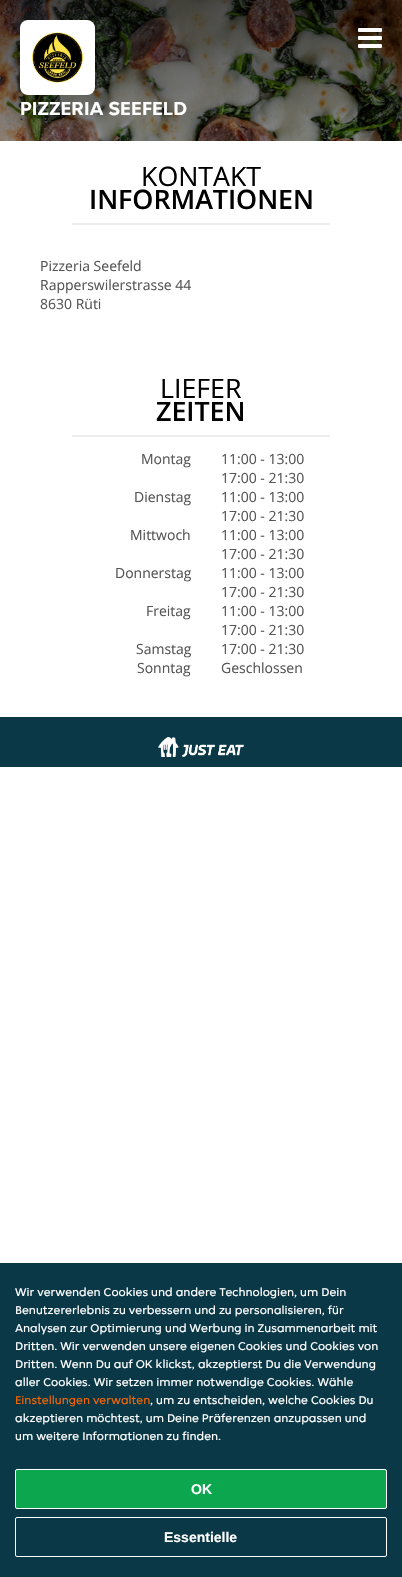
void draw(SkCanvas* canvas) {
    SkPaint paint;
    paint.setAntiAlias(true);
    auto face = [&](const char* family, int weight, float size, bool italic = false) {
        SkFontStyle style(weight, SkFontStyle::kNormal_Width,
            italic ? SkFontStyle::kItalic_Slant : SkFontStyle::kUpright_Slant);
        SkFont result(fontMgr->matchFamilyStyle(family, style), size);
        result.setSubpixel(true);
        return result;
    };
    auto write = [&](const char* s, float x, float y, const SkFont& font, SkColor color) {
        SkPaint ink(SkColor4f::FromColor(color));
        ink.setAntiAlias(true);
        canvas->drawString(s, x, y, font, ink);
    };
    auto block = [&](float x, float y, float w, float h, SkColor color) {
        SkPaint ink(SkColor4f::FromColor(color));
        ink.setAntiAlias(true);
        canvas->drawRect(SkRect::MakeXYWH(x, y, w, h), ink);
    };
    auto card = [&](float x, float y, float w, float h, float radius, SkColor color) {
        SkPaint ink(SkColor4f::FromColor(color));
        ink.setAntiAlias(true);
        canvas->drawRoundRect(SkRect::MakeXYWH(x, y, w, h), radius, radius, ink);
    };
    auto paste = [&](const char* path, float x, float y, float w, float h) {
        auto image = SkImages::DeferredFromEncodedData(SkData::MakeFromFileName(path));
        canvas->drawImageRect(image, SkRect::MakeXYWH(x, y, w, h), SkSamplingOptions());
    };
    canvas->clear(SK_ColorWHITE);
    paste("pic1.png", 0, 0, 402, 141);
    {
        const SkColor colors[] = {SkColorSetARGB(179, 0, 0, 0), SkColorSetARGB(102, 0, 0, 0), SkColorSetARGB(51, 0, 0, 0), SkColorSetARGB(0, 0, 0, 0)};
        const float stops[] = {0, 0.33f, 0.67f, 1};
        const SkPoint ends[] = {{201, 0}, {201, 500}};
        paint.setShader(SkGradientShader::MakeLinear(ends, colors, stops, 4, SkTileMode::kClamp));
        paint.setAlpha(255);
    }
    canvas->drawRect(SkRect::MakeXYWH(0, 0, 402, 141), paint);
    paste("pic2.png", 358, 28, 24, 20);
    card(20, 20, 75, 75, 8, SK_ColorWHITE);
    paste("pic3.png", 31, 32, 53, 51);
    auto kFont1 = face("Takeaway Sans", 700, 20);
    write("PIZZERIA SEEFELD", 20, 115, kFont1, SK_ColorWHITE);
    auto kFont2 = face("Open Sans", 400, 26.75f);
    write("KONTAKT", 141, 186, kFont2, SK_ColorBLACK);
    auto kFont3 = face("Open Sans", 600, 26.75f);
    write("INFORMATIONEN", 89, 209, kFont3, SK_ColorBLACK);
    block(72, 223, 258, 2, SkColorSetRGB(238, 238, 238));
    auto kFont4 = face("Open Sans", 400, 14);
    write("Pizzeria Seefeld", 40, 271, kFont4, SkColorSetRGB(85, 85, 85));
    write("Rapperswilerstrasse 44", 40, 290, kFont4, SkColorSetRGB(85, 85, 85));
    write("8630 Rüti", 40, 309, kFont4, SkColorSetRGB(85, 85, 85));
    write("LIEFER", 160, 398, kFont2, SK_ColorBLACK);
    write("ZEITEN", 156, 421, kFont3, SK_ColorBLACK);
    block(72, 435, 258, 2, SkColorSetRGB(238, 238, 238));
    write("Montag", 141, 464, kFont4, SkColorSetRGB(85, 85, 85));
    write("11:00 - 13:00", 221, 464, kFont4, SkColorSetRGB(85, 85, 85));
    write("17:00 - 21:30", 221, 483, kFont4, SkColorSetRGB(85, 85, 85));
    write("Dienstag", 134, 502, kFont4, SkColorSetRGB(85, 85, 85));
    write("11:00 - 13:00", 221, 502, kFont4, SkColorSetRGB(85, 85, 85));
    write("17:00 - 21:30", 221, 521, kFont4, SkColorSetRGB(85, 85, 85));
    write("Mittwoch", 130, 540, kFont4, SkColorSetRGB(85, 85, 85));
    write("11:00 - 13:00", 221, 540, kFont4, SkColorSetRGB(85, 85, 85));
    write("17:00 - 21:30", 221, 559, kFont4, SkColorSetRGB(85, 85, 85));
    write("Donnerstag", 115, 578, kFont4, SkColorSetRGB(85, 85, 85));
    write("11:00 - 13:00", 221, 578, kFont4, SkColorSetRGB(85, 85, 85));
    write("17:00 - 21:30", 221, 597, kFont4, SkColorSetRGB(85, 85, 85));
    write("Freitag", 146, 616, kFont4, SkColorSetRGB(85, 85, 85));
    write("11:00 - 13:00", 221, 616, kFont4, SkColorSetRGB(85, 85, 85));
    write("17:00 - 21:30", 221, 635, kFont4, SkColorSetRGB(85, 85, 85));
    write("Samstag", 136, 654, kFont4, SkColorSetRGB(85, 85, 85));
    write("17:00 - 21:30", 221, 654, kFont4, SkColorSetRGB(85, 85, 85));
    write("Sonntag", 137, 673, kFont4, SkColorSetRGB(85, 85, 85));
    write("Geschlossen", 221, 673, kFont4, SkColorSetRGB(85, 85, 85));
    block(0, 717, 402, 50, SkColorSetRGB(10, 56, 71));
    paste("pic4.png", 158, 737, 86, 20);
    block(0, 1263, 402, 314, SkColorSetRGB(10, 56, 71));
    auto kFont5 = face("Takeaway Sans", 400, 12);
    write("Wir verwenden Cookies und andere Technologien, um Dein", 15, 1296, kFont5, SK_ColorWHITE);
    write("Benutzererlebnis zu verbessern und zu personalisieren, für", 15, 1314, kFont5, SK_ColorWHITE);
    write("Analysen zur Optimierung und Werbung in Zusammenarbeit mit", 15, 1332, kFont5, SK_ColorWHITE);
    write("Dritten. Wir verwenden unsere eigenen Cookies und Cookies von", 15, 1350, kFont5, SK_ColorWHITE);
    write("Dritten. Wenn Du auf OK klickst, akzeptierst Du die Verwendung", 15, 1368, kFont5, SK_ColorWHITE);
    write("aller Cookies. Wir setzen immer notwendige Cookies. Wähle", 15, 1386, kFont5, SK_ColorWHITE);
    write("Einstellungen verwalten", 15, 1404, kFont5, SkColorSetRGB(248, 102, 0));
    write(", um zu entscheiden, welche Cookies Du", 150, 1404, kFont5, SK_ColorWHITE);
    write("akzeptieren möchtest, um Deine Präferenzen anzupassen und", 15, 1422, kFont5, SK_ColorWHITE);
    write("um weitere Informationen zu finden.", 15, 1440, kFont5, SK_ColorWHITE);
    paint.setShader(nullptr);
    paint.setColor(SkColorSetRGB(12, 166, 79));
    canvas->drawRoundRect(SkRect::MakeXYWH(15.5f, 1469.5f, 371, 39), 1.5f, 1.5f, paint);
    paint.setStyle(SkPaint::kStroke_Style);
    paint.setStrokeWidth(1);
    paint.setColor(SK_ColorWHITE);
    canvas->drawRoundRect(SkRect::MakeXYWH(15.5f, 1469.5f, 371, 39), 1.5f, 1.5f, paint);
    auto kFont6 = face("Liberation Sans", 700, 14);
    write("OK", 191, 1494, kFont6, SK_ColorWHITE);
    canvas->drawRoundRect(SkRect::MakeXYWH(15.5f, 1517.5f, 371, 39), 1.5f, 1.5f, paint);
    write("Essentielle", 164, 1542, kFont6, SK_ColorWHITE);
}
